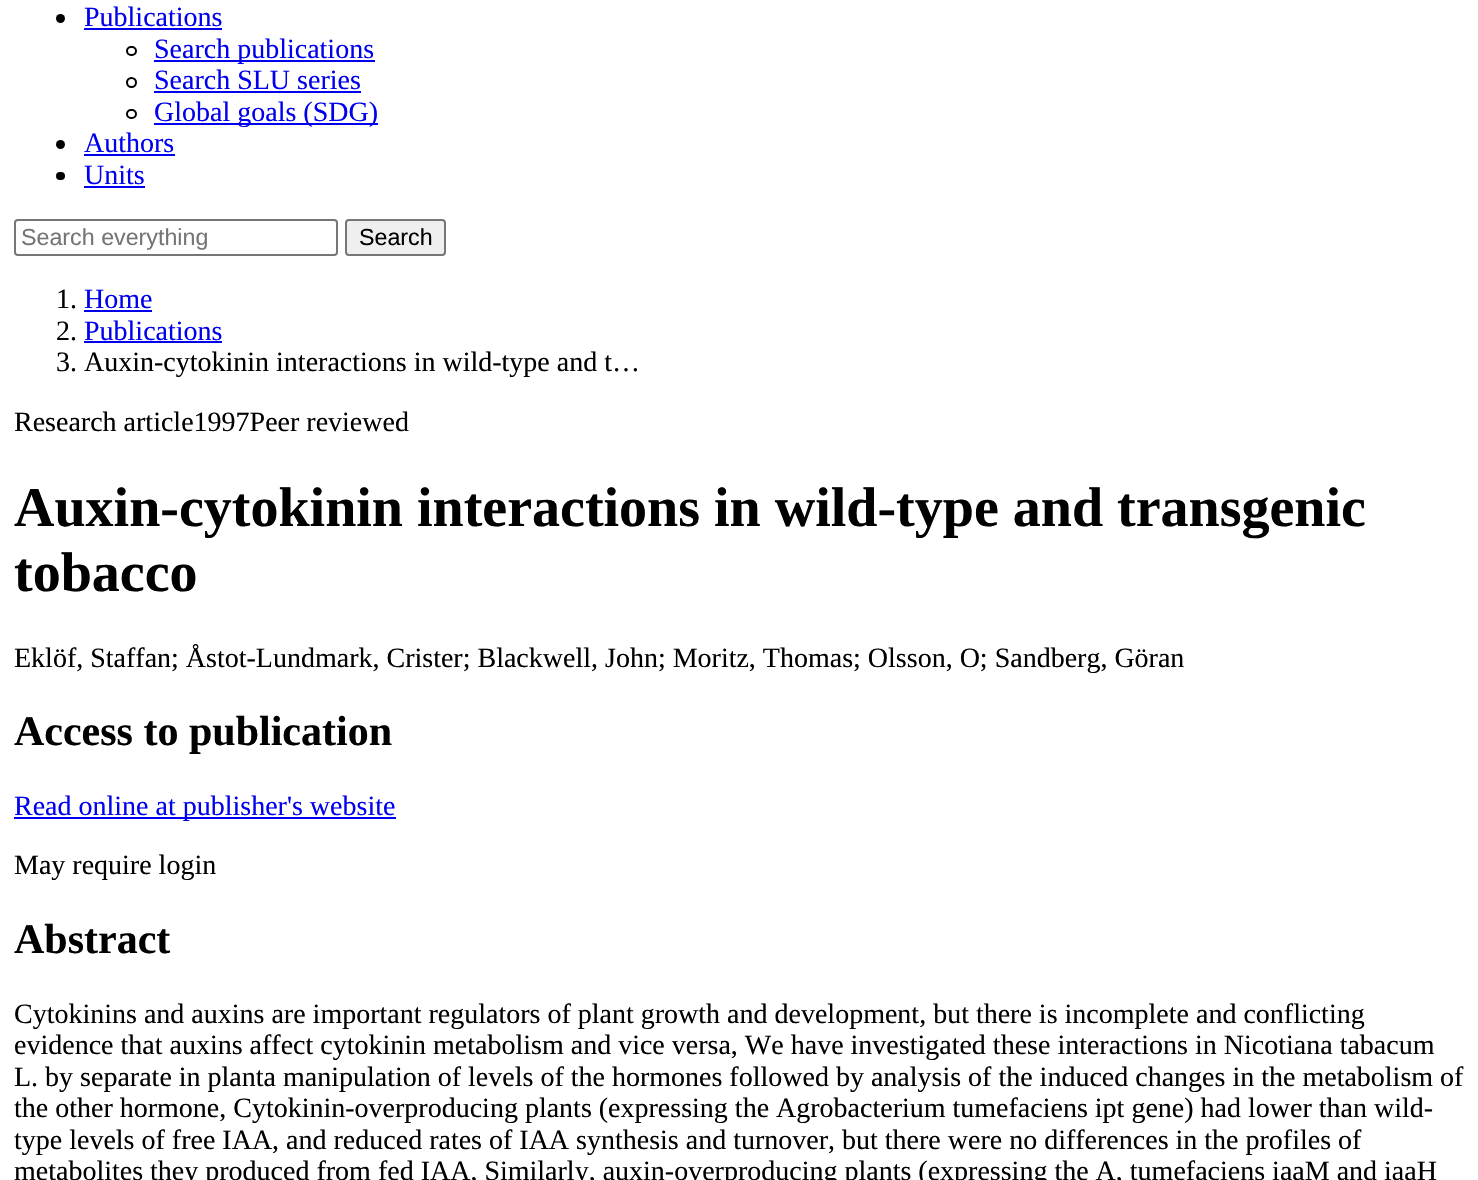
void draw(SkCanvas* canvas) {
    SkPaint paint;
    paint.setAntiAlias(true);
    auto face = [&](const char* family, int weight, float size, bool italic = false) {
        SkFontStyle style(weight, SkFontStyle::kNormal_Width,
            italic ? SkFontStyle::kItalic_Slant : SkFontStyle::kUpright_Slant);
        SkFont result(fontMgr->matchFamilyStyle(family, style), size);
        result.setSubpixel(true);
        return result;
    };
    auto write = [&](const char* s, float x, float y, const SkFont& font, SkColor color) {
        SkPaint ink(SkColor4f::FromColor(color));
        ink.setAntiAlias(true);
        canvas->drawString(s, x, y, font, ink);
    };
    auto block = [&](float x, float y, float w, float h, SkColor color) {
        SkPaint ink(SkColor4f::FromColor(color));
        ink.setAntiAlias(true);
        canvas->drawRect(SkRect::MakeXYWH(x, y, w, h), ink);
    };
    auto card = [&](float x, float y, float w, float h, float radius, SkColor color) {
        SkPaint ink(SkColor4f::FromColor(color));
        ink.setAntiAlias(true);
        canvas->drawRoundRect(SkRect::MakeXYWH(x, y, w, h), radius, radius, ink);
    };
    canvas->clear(SK_ColorWHITE);
    paint.setColor(SK_ColorBLACK);
    canvas->drawCircle(60.5f, 18.5f, 4.5f, paint);
    auto kFont1 = face("Liberation Serif", 400, 28);
    write("Publications", 84, 26, kFont1, SkColorSetRGB(0, 0, 238));
    block(84, 28, 138, 2, SkColorSetRGB(0, 0, 238));
    paint.setStyle(SkPaint::kStroke_Style);
    paint.setStrokeWidth(2);
    canvas->drawRoundRect(SkRect::MakeXYWH(127, 47, 9, 8), 4, 4, paint);
    block(154, 60, 221, 2, SkColorSetRGB(0, 0, 238));
    write("Search publications", 154, 58, kFont1, SkColorSetRGB(0, 0, 238));
    canvas->drawCircle(131.5f, 82.5f, 4.5f, paint);
    write("Search SLU series", 154, 89, kFont1, SkColorSetRGB(0, 0, 238));
    block(154, 91, 207, 2, SkColorSetRGB(0, 0, 238));
    canvas->drawRoundRect(SkRect::MakeXYWH(127, 110, 9, 8), 4, 4, paint);
    block(154, 123, 224, 2, SkColorSetRGB(0, 0, 238));
    write("Global goals (SDG)", 154, 121, kFont1, SkColorSetRGB(0, 0, 238));
    paint.setStyle(SkPaint::kFill_Style);
    canvas->drawCircle(60.5f, 144.5f, 4.5f, paint);
    write("Authors", 84, 152, kFont1, SkColorSetRGB(0, 0, 238));
    block(84, 154, 91, 2, SkColorSetRGB(0, 0, 238));
    card(56, 172, 9, 8, 4, SK_ColorBLACK);
    write("Units", 84, 184, kFont1, SkColorSetRGB(0, 0, 238));
    block(84, 186, 61, 2, SkColorSetRGB(0, 0, 238));
    paint.setStyle(SkPaint::kStroke_Style);
    paint.setColor(SkColorSetRGB(118, 118, 118));
    canvas->drawRoundRect(SkRect::MakeXYWH(15, 220, 322, 35), 3, 3, paint);
    auto kFont2 = face("Liberation Sans", 400, 23.25f);
    write("Search everything", 21, 245, kFont2, SkColorSetRGB(117, 117, 117));
    paint.setStyle(SkPaint::kFill_Style);
    paint.setColor(SkColorSetRGB(239, 239, 239));
    canvas->drawRoundRect(SkRect::MakeXYWH(346, 220, 99, 35), 3, 3, paint);
    paint.setStyle(SkPaint::kStroke_Style);
    paint.setColor(SkColorSetRGB(118, 118, 118));
    canvas->drawRoundRect(SkRect::MakeXYWH(346, 220, 99, 35), 3, 3, paint);
    write("Search", 359, 245, kFont2, SK_ColorBLACK);
    write("1.", 56, 308, kFont1, SK_ColorBLACK);
    write("Home", 84, 308, kFont1, SkColorSetRGB(0, 0, 238));
    block(84, 310, 68, 2, SkColorSetRGB(0, 0, 238));
    write("2.", 56, 340, kFont1, SK_ColorBLACK);
    write("Publications", 84, 340, kFont1, SkColorSetRGB(0, 0, 238));
    block(84, 341, 138, 2, SkColorSetRGB(0, 0, 238));
    write("3. Auxin-cytokinin interactions in wild-type and t…", 56, 371, kFont1, SK_ColorBLACK);
    write("Research article1997Peer reviewed", 14, 431, kFont1, SK_ColorBLACK);
    auto kFont3 = face("Liberation Serif", 700, 56);
    write("Auxin-cytokinin interactions in wild-type and transgenic", 14, 526, kFont3, SK_ColorBLACK);
    write("tobacco", 14, 591, kFont3, SK_ColorBLACK);
    write("Eklöf, Staffan; Åstot-Lundmark, Crister; Blackwell, John; Moritz, Thomas; Olsson, O; Sandberg, Göran", 14, 667, kFont1, SK_ColorBLACK);
    auto kFont4 = face("Liberation Serif", 700, 42);
    write("Access to publication", 14, 745, kFont4, SK_ColorBLACK);
    block(14, 817, 382, 2, SkColorSetRGB(0, 0, 238));
    write("Read online at publisher's website", 14, 815, kFont1, SkColorSetRGB(0, 0, 238));
    write("May require login", 14, 874, kFont1, SK_ColorBLACK);
    write("Abstract", 14, 953, kFont4, SK_ColorBLACK);
    write("Cytokinins and auxins are important regulators of plant growth and development, but there is incomplete and conflicting", 14, 1023, kFont1, SK_ColorBLACK);
    write("evidence that auxins affect cytokinin metabolism and vice versa, We have investigated these interactions in Nicotiana tabacum", 14, 1054, kFont1, SK_ColorBLACK);
    write("L. by separate in planta manipulation of levels of the hormones followed by analysis of the induced changes in the metabolism of", 14, 1086, kFont1, SK_ColorBLACK);
    write("the other hormone, Cytokinin-overproducing plants (expressing the Agrobacterium tumefaciens ipt gene) had lower than wild-", 14, 1117, kFont1, SK_ColorBLACK);
    write("type levels of free IAA, and reduced rates of IAA synthesis and turnover, but there were no differences in the profiles of", 14, 1149, kFont1, SK_ColorBLACK);
    write("metabolites they produced from fed IAA, Similarly, auxin-overproducing plants (expressing the A, tumefaciens iaaM and iaaH", 14, 1180, kFont1, SK_ColorBLACK);
}
